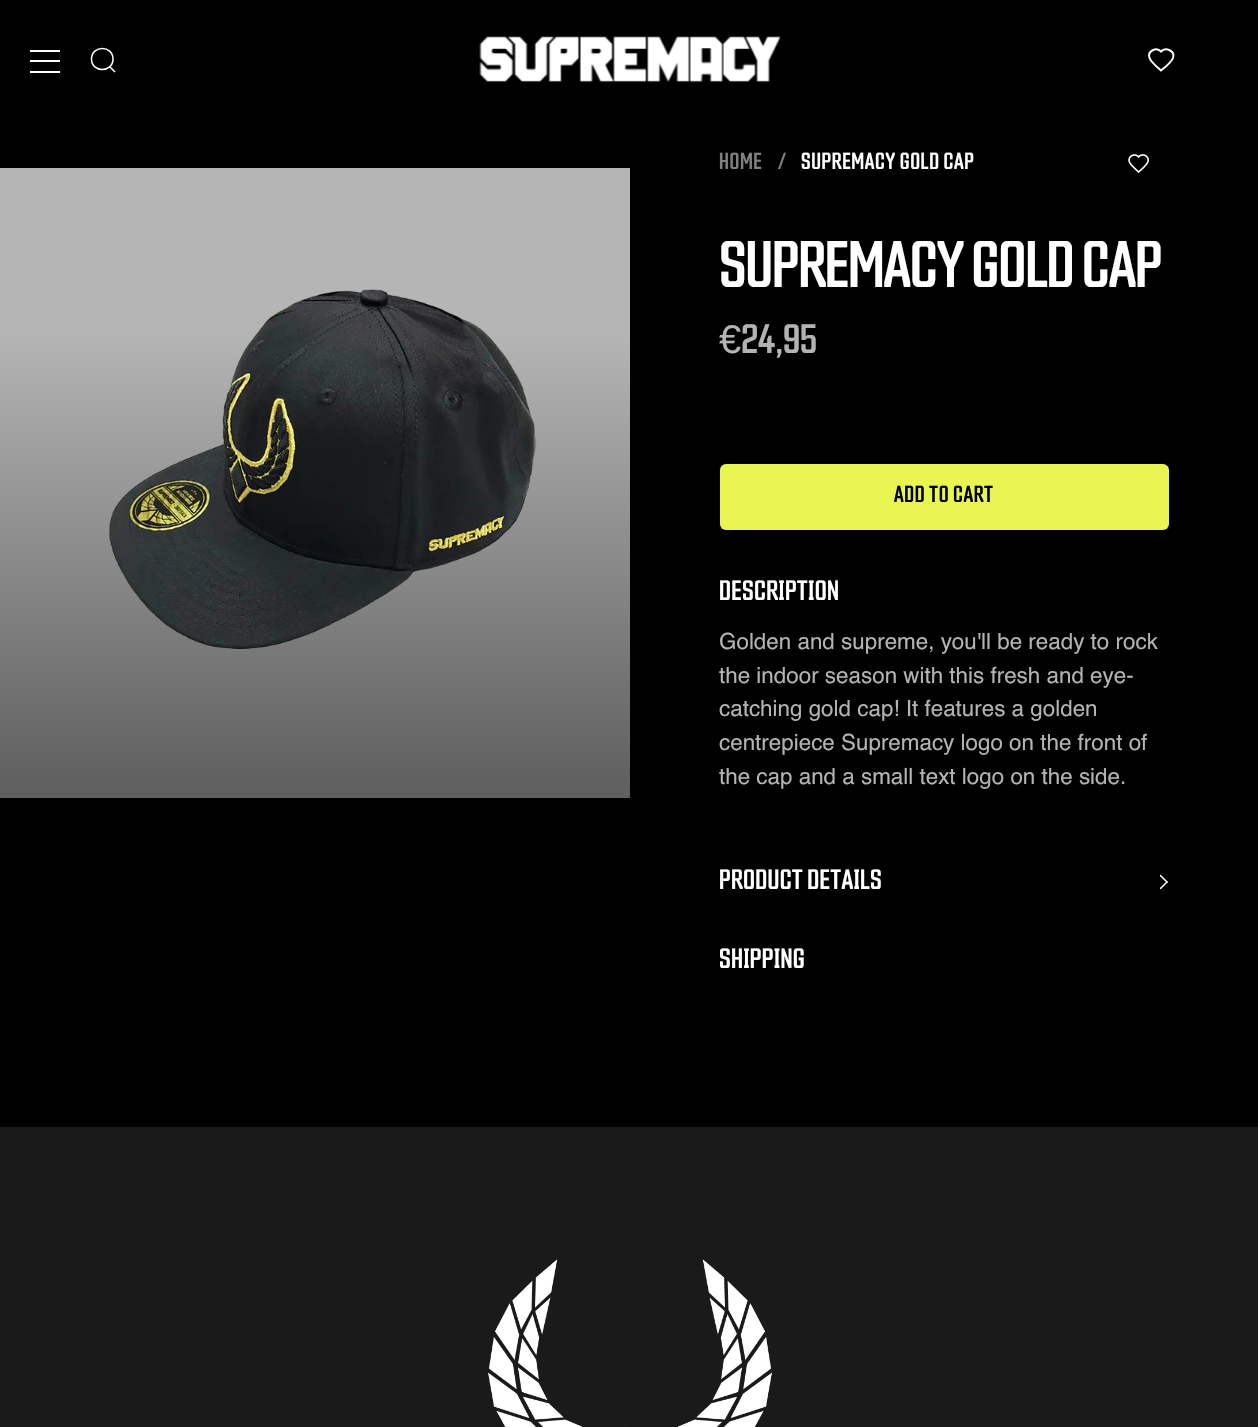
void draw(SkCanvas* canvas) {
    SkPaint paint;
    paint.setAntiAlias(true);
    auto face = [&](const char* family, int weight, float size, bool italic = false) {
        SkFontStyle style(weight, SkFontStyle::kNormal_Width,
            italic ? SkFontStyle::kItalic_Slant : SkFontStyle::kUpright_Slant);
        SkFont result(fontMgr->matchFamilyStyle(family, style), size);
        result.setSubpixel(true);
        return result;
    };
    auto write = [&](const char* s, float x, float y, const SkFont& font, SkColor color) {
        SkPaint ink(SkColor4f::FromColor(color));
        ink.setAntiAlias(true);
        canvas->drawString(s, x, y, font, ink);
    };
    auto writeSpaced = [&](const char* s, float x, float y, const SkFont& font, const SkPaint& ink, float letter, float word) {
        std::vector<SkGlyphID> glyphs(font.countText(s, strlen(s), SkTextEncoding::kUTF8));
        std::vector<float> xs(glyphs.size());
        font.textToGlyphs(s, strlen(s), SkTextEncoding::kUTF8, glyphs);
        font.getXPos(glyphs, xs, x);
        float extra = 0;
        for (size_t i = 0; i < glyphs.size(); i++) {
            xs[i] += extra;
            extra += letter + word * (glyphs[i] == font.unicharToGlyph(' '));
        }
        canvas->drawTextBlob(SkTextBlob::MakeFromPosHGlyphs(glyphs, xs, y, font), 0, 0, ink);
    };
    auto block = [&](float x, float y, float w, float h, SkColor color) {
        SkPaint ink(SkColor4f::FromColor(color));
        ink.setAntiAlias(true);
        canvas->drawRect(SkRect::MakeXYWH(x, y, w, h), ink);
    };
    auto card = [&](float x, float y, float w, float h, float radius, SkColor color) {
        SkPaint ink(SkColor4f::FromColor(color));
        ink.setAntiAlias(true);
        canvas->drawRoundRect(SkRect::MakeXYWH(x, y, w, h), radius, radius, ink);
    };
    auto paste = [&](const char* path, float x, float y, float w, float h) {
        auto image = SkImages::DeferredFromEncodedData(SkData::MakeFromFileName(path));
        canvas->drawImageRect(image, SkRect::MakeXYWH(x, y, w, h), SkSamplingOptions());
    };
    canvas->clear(SK_ColorBLACK);
    block(30, 50, 30, 2, SK_ColorWHITE);
    block(30, 71, 30, 2, SK_ColorWHITE);
    block(30, 60, 30, 2, SK_ColorWHITE);
    paint.setStyle(SkPaint::kStroke_Style);
    paint.setStrokeWidth(1.5f);
    paint.setStrokeCap(SkPaint::kSquare_Cap);
    paint.setColor(SK_ColorWHITE);
    canvas->drawPath(SkPathBuilder().moveTo(110, 67).lineTo(114.5f, 71.5f).moveTo(113, 59).cubicTo(113, 73, 91.5f, 73, 91.5f, 59).cubicTo(91.5f, 45, 113, 45, 113, 59).close().detach(), paint);
    paste("pic1.png", 479, 36, 301, 47);
    paint.setStrokeWidth(2);
    paint.setStrokeCap(SkPaint::kRound_Cap);
    canvas->drawPath(SkPathBuilder().moveTo(1161, 70.5f).cubicTo(1157.5f, 67.5f, 1151, 62, 1149.5f, 58).cubicTo(1147, 51, 1156.5f, 46.5f, 1161, 51.5f).cubicTo(1165.5f, 46.5f, 1175.5f, 51, 1173, 58).cubicTo(1171, 63, 1165, 67, 1161, 70.5f).close().detach(), paint);
    paint.setStyle(SkPaint::kFill_Style);
    {
        const SkColor colors[] = {SkColorSetRGB(96, 96, 96), SkColorSetRGB(181, 181, 181)};
        const float stops[] = {0.02f, 0.74f};
        const SkPoint ends[] = {{315, 798}, {315, 168}};
        paint.setShader(SkGradientShader::MakeLinear(ends, colors, stops, 2, SkTileMode::kClamp));
        paint.setAlpha(255);
    }
    canvas->drawRect(SkRect::MakeXYWH(0, 168, 630, 630), paint);
    paste("pic2.png", 109, 289, 428, 361);
    auto kFont1 = face("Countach", 400, 22.4f);
    paint.setShader(nullptr);
    paint.setColor(SkColorSetRGB(128, 128, 128));
    writeSpaced("HOME", 719, 169, kFont1, paint, 0.6f, 0);
    writeSpaced("/", 778, 169, kFont1, paint, 0.6f, 0);
    paint.setColor(SK_ColorWHITE);
    writeSpaced("SUPREMACY GOLD CAP", 801, 169, kFont1, paint, 0.6f, 0);
    paste("pic3.png", 1128, 154, 21, 19);
    auto kFont2 = face("Countach", 400, 64);
    writeSpaced("SUPREMACY GOLD CAP", 719, 287, kFont2, paint, -1.25f, 0);
    auto kFont3 = face("Liberation Sans", 400, 40);
    paint.setColor(SkColorSetRGB(179, 179, 179));
    writeSpaced("€", 719, 353, kFont3, paint, -0.5f, 0);
    auto kFont4 = face("Countach", 400, 40);
    writeSpaced("24,95", 741, 353, kFont4, paint, -0.5f, 0);
    card(720, 464, 449, 66, 6, SkColorSetRGB(233, 245, 81));
    paint.setColor(SK_ColorBLACK);
    writeSpaced("ADD TO CART", 894, 502, kFont1, paint, 0.6f, 0);
    auto kFont5 = face("Countach", 400, 27.25f);
    paint.setColor(SK_ColorWHITE);
    writeSpaced("DESCRIPTION", 719, 600, kFont5, paint, 0.25f, 0);
    auto kFont6 = face("Helvetica", 400, 22.4f);
    write("Golden and supreme, you'll be ready to rock", 719, 649, kFont6, SkColorSetRGB(179, 179, 179));
    write("the indoor season with this fresh and eye-", 719, 683, kFont6, SkColorSetRGB(179, 179, 179));
    write("catching gold cap! It features a golden", 719, 716, kFont6, SkColorSetRGB(179, 179, 179));
    write("centrepiece Supremacy logo on the front of", 719, 750, kFont6, SkColorSetRGB(179, 179, 179));
    write("the cap and a small text logo on the side.", 719, 784, kFont6, SkColorSetRGB(179, 179, 179));
    writeSpaced("PRODUCT DETAILS", 719, 889, kFont5, paint, 0.25f, 0);
    paste("pic4.png", 1160, 874, 8, 16);
    writeSpaced("SHIPPING", 719, 968, kFont5, paint, 0.25f, 0);
    block(0, 1127, 1258, 300, SkColorSetRGB(26, 26, 26));
    paste("pic5.png", 488, 1259, 284, 168);
}
